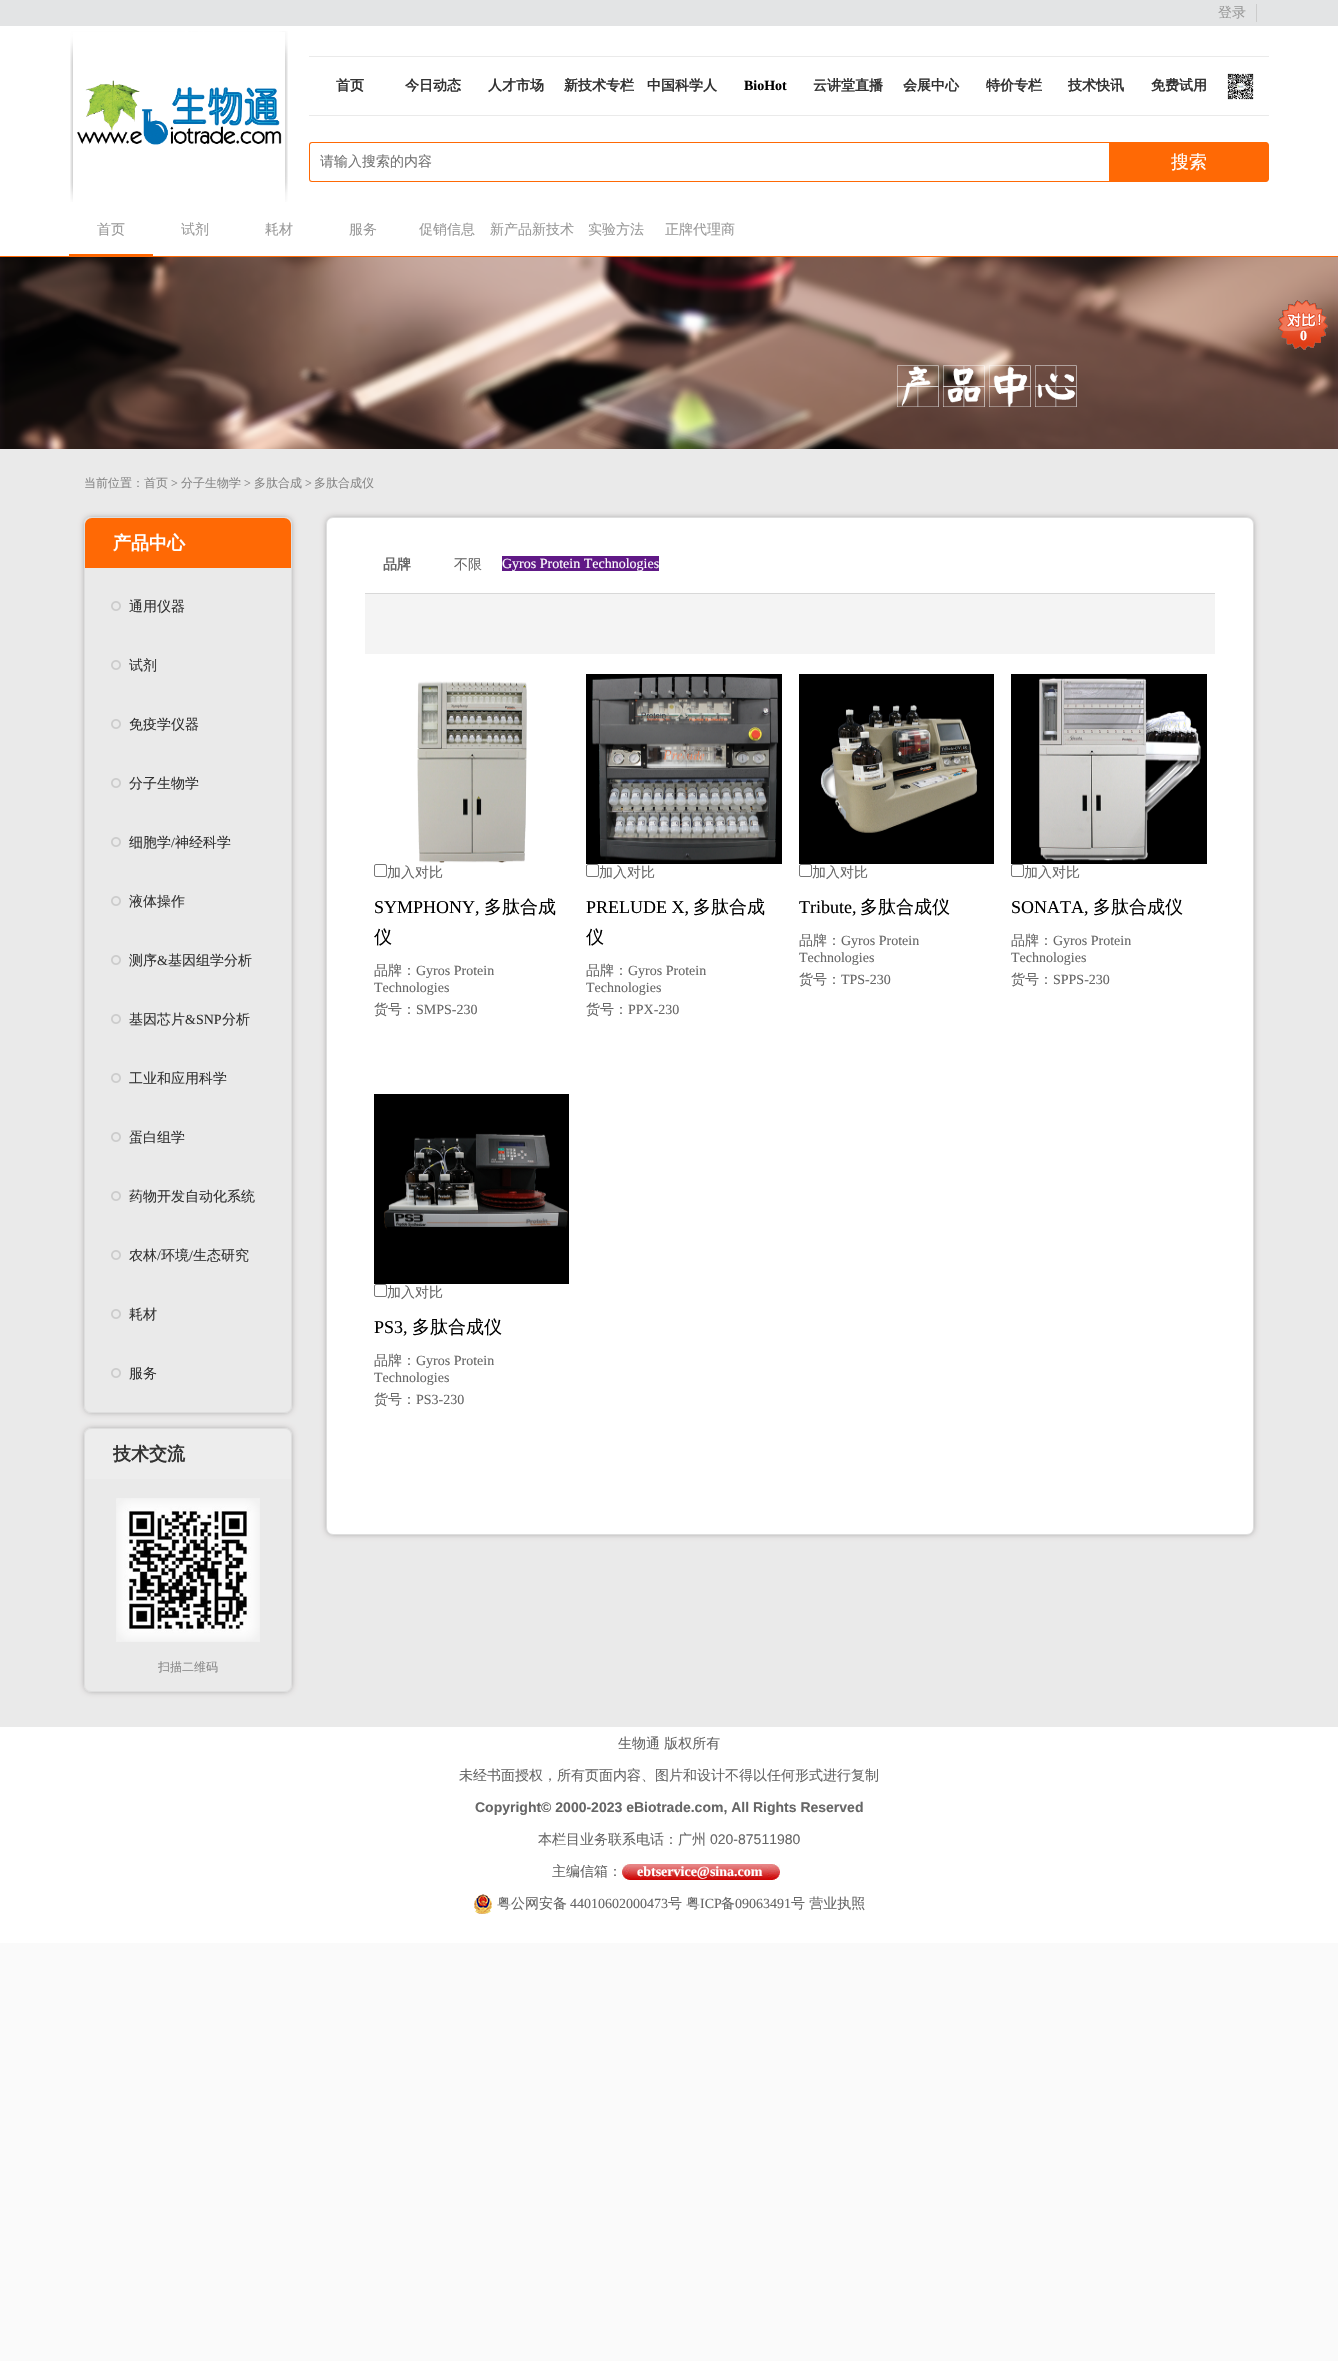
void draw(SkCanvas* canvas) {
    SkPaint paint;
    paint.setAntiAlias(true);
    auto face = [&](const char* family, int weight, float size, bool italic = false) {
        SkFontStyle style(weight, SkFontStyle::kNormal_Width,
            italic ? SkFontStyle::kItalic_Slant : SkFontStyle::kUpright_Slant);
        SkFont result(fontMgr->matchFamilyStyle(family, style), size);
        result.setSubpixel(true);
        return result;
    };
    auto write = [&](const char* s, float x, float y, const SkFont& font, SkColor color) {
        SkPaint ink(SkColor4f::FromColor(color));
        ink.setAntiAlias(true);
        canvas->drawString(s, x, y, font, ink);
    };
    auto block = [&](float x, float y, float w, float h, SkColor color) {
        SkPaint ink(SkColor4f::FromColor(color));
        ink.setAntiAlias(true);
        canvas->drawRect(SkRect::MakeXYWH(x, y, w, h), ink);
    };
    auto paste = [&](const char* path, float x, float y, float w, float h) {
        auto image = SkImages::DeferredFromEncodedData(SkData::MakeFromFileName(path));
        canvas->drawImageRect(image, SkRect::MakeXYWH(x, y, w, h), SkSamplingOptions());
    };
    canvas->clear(SkColorSetRGB(250, 250, 250));
    block(0, 449, 1338, 1278, SkColorSetRGB(234, 234, 234));
    block(0, 0, 1338, 26, SkColorSetRGB(227, 228, 229));
    block(1256, 4, 1, 18, SkColorSetRGB(204, 204, 204));
    auto kFont1 = face("WenQuanYi Zen Hei", 500, 14);
    write("登录", 1218, 17, kFont1, SkColorSetRGB(153, 153, 153));
    block(0, 26, 1338, 230, SK_ColorWHITE);
    paste("pic1.png", 70, 31, 218, 171);
    paste("pic2.png", 77, 80, 205, 65);
    block(309, 56, 960, 1, SkColorSetRGB(234, 234, 234));
    block(309, 115, 960, 1, SkColorSetRGB(234, 234, 234));
    auto kFont2 = face("WenQuanYi Zen Hei", 700, 14);
    write("首页", 336, 90, kFont2, SkColorSetRGB(51, 51, 51));
    write("今日动态", 405, 90, kFont2, SkColorSetRGB(51, 51, 51));
    write("人才市场", 488, 90, kFont2, SkColorSetRGB(51, 51, 51));
    write("新技术专栏", 564, 90, kFont2, SkColorSetRGB(51, 51, 51));
    write("中国科学人", 647, 90, kFont2, SkColorSetRGB(51, 51, 51));
    auto kFont3 = face("Liberation Serif", 700, 14);
    write("BioHot", 744, 90, kFont3, SK_ColorBLACK);
    write("云讲堂直播", 813, 90, kFont2, SkColorSetRGB(51, 51, 51));
    write("会展中心", 903, 90, kFont2, SkColorSetRGB(51, 51, 51));
    write("特价专栏", 986, 90, kFont2, SkColorSetRGB(51, 51, 51));
    write("技术快讯", 1068, 90, kFont2, SkColorSetRGB(51, 51, 51));
    write("免费试用", 1151, 90, kFont2, SkColorSetRGB(51, 51, 51));
    paste("pic3.png", 1227, 73, 27, 27);
    paint.setColor(SkColorSetRGB(255, 105, 5));
    canvas->drawPath(SkPathBuilder(SkPathFillType::kEvenOdd).moveTo(312, 142).lineTo(1109, 142).lineTo(1109, 182).lineTo(312, 182).cubicTo(310, 182, 309, 181, 309, 179).lineTo(309, 145).cubicTo(309, 143, 310, 142, 312, 142).close().moveTo(312, 143).lineTo(1109, 143).lineTo(1109, 181).lineTo(312, 181).cubicTo(311, 181, 310, 180, 310, 179).lineTo(310, 145).cubicTo(310, 144, 311, 143, 312, 143).close().detach(), paint);
    write("请输入搜索的内容", 320, 166, kFont1, SkColorSetRGB(117, 117, 117));
    canvas->drawPath(SkPathBuilder().moveTo(1109, 142).lineTo(1266, 142).cubicTo(1267.5f, 142, 1269, 143.5f, 1269, 145).lineTo(1269, 179).cubicTo(1269, 180.5f, 1267.5f, 182, 1266, 182).lineTo(1109, 182).close().detach(), paint);
    auto kFont4 = face("WenQuanYi Zen Hei", 500, 18);
    write("搜索", 1171, 168, kFont4, SK_ColorWHITE);
    block(0, 256, 1338, 1, SkColorSetRGB(255, 105, 5));
    block(69, 254, 84, 2, SkColorSetRGB(255, 102, 0));
    write("首页", 97, 234, kFont1, SkColorSetRGB(153, 153, 153));
    write("试剂", 181, 234, kFont1, SkColorSetRGB(153, 153, 153));
    write("耗材", 265, 234, kFont1, SkColorSetRGB(153, 153, 153));
    write("服务", 349, 234, kFont1, SkColorSetRGB(153, 153, 153));
    write("促销信息", 419, 234, kFont1, SkColorSetRGB(153, 153, 153));
    write("新产品新技术", 490, 234, kFont1, SkColorSetRGB(153, 153, 153));
    write("实验方法", 588, 234, kFont1, SkColorSetRGB(153, 153, 153));
    write("正牌代理商", 665, 234, kFont1, SkColorSetRGB(153, 153, 153));
    paste("pic4.png", 0, 257, 1338, 192);
    paste("pic5.png", 1278, 300, 50, 50);
    write("0", 1300, 340, kFont3, SK_ColorWHITE);
    auto kFont5 = face("WenQuanYi Zen Hei", 500, 12);
    write("当前位置：首页", 84, 487, kFont5, SkColorSetRGB(136, 136, 136));
    auto kFont6 = face("Liberation Serif", 400, 12);
    write(">", 171, 487, kFont6, SkColorSetRGB(136, 136, 136));
    write("分子生物学", 181, 487, kFont5, SkColorSetRGB(136, 136, 136));
    write(">", 244, 487, kFont6, SkColorSetRGB(136, 136, 136));
    write("多肽合成", 254, 487, kFont5, SkColorSetRGB(136, 136, 136));
    write(">", 305, 487, kFont6, SkColorSetRGB(136, 136, 136));
    write("多肽合成仪", 314, 487, kFont5, SkColorSetRGB(136, 136, 136));
    canvas->save();
    canvas->clipPath(SkPathBuilder(SkPathFillType::kEvenOdd).moveTo(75, 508).lineTo(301, 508).lineTo(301, 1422).lineTo(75, 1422).close().moveTo(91, 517).lineTo(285, 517).cubicTo(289, 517, 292, 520, 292, 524).lineTo(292, 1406).cubicTo(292, 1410, 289, 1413, 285, 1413).lineTo(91, 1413).cubicTo(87, 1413, 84, 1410, 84, 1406).lineTo(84, 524).cubicTo(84, 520, 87, 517, 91, 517).close().detach(), true);
    paint.setColor(SkColorSetARGB(89, 6, 0, 1));
    paint.setMaskFilter(SkMaskFilter::MakeBlur(kNormal_SkBlurStyle, 3));
    canvas->drawRoundRect(SkRect::MakeXYWH(85, 518, 206, 894), 6, 6, paint);
    paint.setMaskFilter(nullptr);
    canvas->restore();
    paint.setStyle(SkPaint::kStroke_Style);
    paint.setStrokeWidth(1);
    paint.setColor(SkColorSetRGB(222, 222, 222));
    canvas->drawRoundRect(SkRect::MakeXYWH(84.5f, 517.5f, 207, 895), 6.5f, 6.5f, paint);
    paint.setStyle(SkPaint::kFill_Style);
    paint.setColor(SkColorSetRGB(255, 105, 5));
    canvas->drawPath(SkPathBuilder().moveTo(92, 518).lineTo(284, 518).cubicTo(288, 518, 291, 521, 291, 525).lineTo(291, 568).lineTo(85, 568).lineTo(85, 525).cubicTo(85, 521, 88, 518, 92, 518).close().detach(), paint);
    auto kFont7 = face("WenQuanYi Zen Hei", 700, 18);
    write("产品中心", 113, 549, kFont7, SK_ColorWHITE);
    paste("pic6.png", 111, 601, 10, 10);
    write("通用仪器", 129, 611, kFont1, SkColorSetRGB(51, 51, 51));
    paste("pic6.png", 111, 660, 10, 10);
    write("试剂", 129, 670, kFont1, SkColorSetRGB(51, 51, 51));
    paste("pic6.png", 111, 719, 10, 10);
    write("免疫学仪器", 129, 729, kFont1, SkColorSetRGB(51, 51, 51));
    paste("pic6.png", 111, 778, 10, 10);
    write("分子生物学", 129, 788, kFont1, SkColorSetRGB(51, 51, 51));
    paste("pic6.png", 111, 837, 10, 10);
    write("细胞学", 129, 847, kFont1, SkColorSetRGB(51, 51, 51));
    auto kFont8 = face("Liberation Serif", 400, 14);
    write("/", 171, 847, kFont8, SkColorSetRGB(51, 51, 51));
    write("神经科学", 175, 847, kFont1, SkColorSetRGB(51, 51, 51));
    paste("pic6.png", 111, 896, 10, 10);
    write("液体操作", 129, 906, kFont1, SkColorSetRGB(51, 51, 51));
    paste("pic6.png", 111, 955, 10, 10);
    write("测序", 129, 965, kFont1, SkColorSetRGB(51, 51, 51));
    write("&", 157, 965, kFont8, SkColorSetRGB(51, 51, 51));
    write("基因组学分析", 168, 965, kFont1, SkColorSetRGB(51, 51, 51));
    paste("pic6.png", 111, 1014, 10, 10);
    write("基因芯片", 129, 1024, kFont1, SkColorSetRGB(51, 51, 51));
    write("&SNP", 185, 1024, kFont8, SkColorSetRGB(51, 51, 51));
    write("分析", 222, 1024, kFont1, SkColorSetRGB(51, 51, 51));
    paste("pic6.png", 111, 1073, 10, 10);
    write("工业和应用科学", 129, 1083, kFont1, SkColorSetRGB(51, 51, 51));
    paste("pic6.png", 111, 1132, 10, 10);
    write("蛋白组学", 129, 1142, kFont1, SkColorSetRGB(51, 51, 51));
    paste("pic6.png", 111, 1191, 10, 10);
    write("药物开发自动化系统", 129, 1201, kFont1, SkColorSetRGB(51, 51, 51));
    paste("pic6.png", 111, 1250, 10, 10);
    write("农林", 129, 1260, kFont1, SkColorSetRGB(51, 51, 51));
    write("/", 157, 1260, kFont8, SkColorSetRGB(51, 51, 51));
    write("环境", 161, 1260, kFont1, SkColorSetRGB(51, 51, 51));
    write("/", 189, 1260, kFont8, SkColorSetRGB(51, 51, 51));
    write("生态研究", 193, 1260, kFont1, SkColorSetRGB(51, 51, 51));
    paste("pic6.png", 111, 1309, 10, 10);
    write("耗材", 129, 1319, kFont1, SkColorSetRGB(51, 51, 51));
    paste("pic6.png", 111, 1368, 10, 10);
    write("服务", 129, 1378, kFont1, SkColorSetRGB(51, 51, 51));
    canvas->save();
    canvas->clipPath(SkPathBuilder(SkPathFillType::kEvenOdd).moveTo(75, 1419).lineTo(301, 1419).lineTo(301, 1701).lineTo(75, 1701).close().moveTo(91, 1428).lineTo(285, 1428).cubicTo(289, 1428, 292, 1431, 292, 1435).lineTo(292, 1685).cubicTo(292, 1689, 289, 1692, 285, 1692).lineTo(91, 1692).cubicTo(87, 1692, 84, 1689, 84, 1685).lineTo(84, 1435).cubicTo(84, 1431, 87, 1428, 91, 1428).close().detach(), true);
    paint.setColor(SkColorSetARGB(89, 6, 0, 1));
    paint.setMaskFilter(SkMaskFilter::MakeBlur(kNormal_SkBlurStyle, 3));
    canvas->drawRoundRect(SkRect::MakeXYWH(85, 1429, 206, 262), 6, 6, paint);
    paint.setMaskFilter(nullptr);
    canvas->restore();
    paint.setStyle(SkPaint::kStroke_Style);
    paint.setColor(SkColorSetRGB(222, 222, 222));
    canvas->drawRoundRect(SkRect::MakeXYWH(84.5f, 1428.5f, 207, 263), 6.5f, 6.5f, paint);
    paint.setStyle(SkPaint::kFill_Style);
    paint.setColor(SkColorSetRGB(237, 237, 237));
    canvas->drawPath(SkPathBuilder().moveTo(92, 1429).lineTo(284, 1429).cubicTo(288, 1429, 291, 1432, 291, 1436).lineTo(291, 1479).lineTo(85, 1479).lineTo(85, 1436).cubicTo(85, 1432, 88, 1429, 92, 1429).close().detach(), paint);
    write("技术交流", 113, 1460, kFont7, SkColorSetRGB(51, 51, 51));
    paste("pic7.png", 116, 1498, 144, 144);
    write("扫描二维码", 158, 1671, kFont5, SkColorSetRGB(136, 136, 136));
    paint.setColor(SkColorSetARGB(89, 6, 0, 1));
    paint.setMaskFilter(SkMaskFilter::MakeBlur(kNormal_SkBlurStyle, 3));
    canvas->drawRoundRect(SkRect::MakeXYWH(327, 518, 926, 1016), 6, 6, paint);
    paint.setMaskFilter(nullptr);
    paint.setColor(SK_ColorWHITE);
    canvas->drawRoundRect(SkRect::MakeXYWH(326.5f, 517.5f, 927, 1017), 6.5f, 6.5f, paint);
    paint.setStyle(SkPaint::kStroke_Style);
    paint.setColor(SkColorSetRGB(222, 222, 222));
    canvas->drawRoundRect(SkRect::MakeXYWH(326.5f, 517.5f, 927, 1017), 6.5f, 6.5f, paint);
    write("品牌", 383, 569, kFont2, SkColorSetRGB(102, 102, 102));
    write("不限", 454, 569, kFont1, SkColorSetRGB(102, 102, 102));
    block(502, 556, 157, 15, SkColorSetRGB(96, 25, 134));
    write("Gyros Protein Technologies", 502, 568, kFont8, SK_ColorWHITE);
    block(365, 594, 850, 60, SkColorSetRGB(244, 244, 244));
    block(365, 593, 850, 1, SkColorSetRGB(216, 216, 216));
    paste("pic8.png", 417, 681, 110, 182);
    paint.setColor(SkColorSetRGB(118, 118, 118));
    canvas->drawRoundRect(SkRect::MakeXYWH(374.5f, 864.5f, 12, 12), 1.5f, 1.5f, paint);
    write("加入对比", 387, 877, kFont1, SkColorSetRGB(102, 102, 102));
    auto kFont9 = face("Liberation Serif", 400, 18);
    write("SYMPHONY,", 374, 913, kFont9, SK_ColorBLACK);
    write("多肽合成", 484, 913, kFont4, SK_ColorBLACK);
    write("仪", 374, 943, kFont4, SK_ColorBLACK);
    write("品牌：", 374, 975, kFont1, SkColorSetRGB(102, 102, 102));
    write("Gyros Protein", 416, 975, kFont8, SkColorSetRGB(102, 102, 102));
    write("Technologies", 374, 992, kFont8, SkColorSetRGB(102, 102, 102));
    write("货号：", 374, 1014, kFont1, SkColorSetRGB(102, 102, 102));
    write("SMPS-230", 416, 1014, kFont8, SkColorSetRGB(102, 102, 102));
    paste("pic9.png", 586, 674, 196, 190);
    canvas->drawRoundRect(SkRect::MakeXYWH(586.5f, 864.5f, 12, 12), 1.5f, 1.5f, paint);
    write("加入对比", 599, 877, kFont1, SkColorSetRGB(102, 102, 102));
    write("PRELUDE X,", 586, 913, kFont9, SK_ColorBLACK);
    write("多肽合成", 693, 913, kFont4, SK_ColorBLACK);
    write("仪", 586, 943, kFont4, SK_ColorBLACK);
    write("品牌：", 586, 975, kFont1, SkColorSetRGB(102, 102, 102));
    write("Gyros Protein", 628, 975, kFont8, SkColorSetRGB(102, 102, 102));
    write("Technologies", 586, 992, kFont8, SkColorSetRGB(102, 102, 102));
    write("货号：", 586, 1014, kFont1, SkColorSetRGB(102, 102, 102));
    write("PPX-230", 628, 1014, kFont8, SkColorSetRGB(102, 102, 102));
    paste("pic10.png", 799, 674, 195, 190);
    canvas->drawRoundRect(SkRect::MakeXYWH(799.5f, 864.5f, 12, 12), 1.5f, 1.5f, paint);
    write("加入对比", 812, 877, kFont1, SkColorSetRGB(102, 102, 102));
    canvas->save();
    canvas->clipRect(SkRect::MakeXYWH(799, 674, 195, 400));
    write("Tribute,", 799, 913, kFont9, SK_ColorBLACK);
    canvas->restore();
    write("多肽合成仪", 860, 913, kFont4, SK_ColorBLACK);
    write("品牌：", 799, 945, kFont1, SkColorSetRGB(102, 102, 102));
    write("Gyros Protein", 841, 945, kFont8, SkColorSetRGB(102, 102, 102));
    write("Technologies", 799, 962, kFont8, SkColorSetRGB(102, 102, 102));
    write("货号：", 799, 984, kFont1, SkColorSetRGB(102, 102, 102));
    write("TPS-230", 841, 984, kFont8, SkColorSetRGB(102, 102, 102));
    paste("pic11.png", 1011, 674, 196, 190);
    canvas->drawRoundRect(SkRect::MakeXYWH(1011.5f, 864.5f, 12, 12), 1.5f, 1.5f, paint);
    write("加入对比", 1024, 877, kFont1, SkColorSetRGB(102, 102, 102));
    write("SONATA,", 1011, 913, kFont9, SK_ColorBLACK);
    write("多肽合成仪", 1093, 913, kFont4, SK_ColorBLACK);
    write("品牌：", 1011, 945, kFont1, SkColorSetRGB(102, 102, 102));
    write("Gyros Protein", 1053, 945, kFont8, SkColorSetRGB(102, 102, 102));
    write("Technologies", 1011, 962, kFont8, SkColorSetRGB(102, 102, 102));
    write("货号：", 1011, 984, kFont1, SkColorSetRGB(102, 102, 102));
    write("SPPS-230", 1053, 984, kFont8, SkColorSetRGB(102, 102, 102));
    paste("pic12.png", 374, 1094, 195, 190);
    canvas->drawRoundRect(SkRect::MakeXYWH(374.5f, 1284.5f, 12, 12), 1.5f, 1.5f, paint);
    write("加入对比", 387, 1297, kFont1, SkColorSetRGB(102, 102, 102));
    write("PS3,", 374, 1333, kFont9, SK_ColorBLACK);
    write("多肽合成仪", 412, 1333, kFont4, SK_ColorBLACK);
    write("品牌：", 374, 1365, kFont1, SkColorSetRGB(102, 102, 102));
    write("Gyros Protein", 416, 1365, kFont8, SkColorSetRGB(102, 102, 102));
    write("Technologies", 374, 1382, kFont8, SkColorSetRGB(102, 102, 102));
    write("货号：", 374, 1404, kFont1, SkColorSetRGB(102, 102, 102));
    write("PS3-230", 416, 1404, kFont8, SkColorSetRGB(102, 102, 102));
    block(0, 1727, 1338, 216, SK_ColorWHITE);
    write("生物通 版权所有", 618, 1748, kFont1, SkColorSetRGB(102, 102, 102));
    write("未经书面授权，所有页面内容、图片和设计不得以任何形式进行复制", 459, 1780, kFont1, SkColorSetRGB(102, 102, 102));
    auto kFont10 = face("Liberation Sans", 700, 14);
    write("Copyright© 2000-2023 eBiotrade.com, All Rights Reserved", 475, 1812, kFont10, SkColorSetRGB(102, 102, 102));
    write("本栏目业务联系电话：广州", 538, 1844, kFont1, SkColorSetRGB(102, 102, 102));
    auto kFont11 = face("Liberation Sans", 400, 14);
    write("020-87511980", 710, 1844, kFont11, SkColorSetRGB(102, 102, 102));
    write("主编信箱：", 552, 1876, kFont1, SkColorSetRGB(102, 102, 102));
    paste("pic13.png", 622, 1864, 158, 16);
    write("ebtservice@sina.com", 637, 1876, kFont3, SK_ColorWHITE);
    paste("pic14.png", 474, 1894, 18, 20);
    write("粤公网安备", 497, 1908, kFont1, SkColorSetRGB(102, 102, 102));
    write("44010602000473", 570, 1908, kFont8, SkColorSetRGB(102, 102, 102));
    write("号", 668, 1908, kFont1, SkColorSetRGB(102, 102, 102));
    write("粤", 686, 1908, kFont1, SkColorSetRGB(102, 102, 102));
    write("ICP", 700, 1908, kFont8, SkColorSetRGB(102, 102, 102));
    write("备", 721, 1908, kFont1, SkColorSetRGB(102, 102, 102));
    write("09063491", 735, 1908, kFont8, SkColorSetRGB(102, 102, 102));
    write("号 营业执照", 791, 1908, kFont1, SkColorSetRGB(102, 102, 102));
}
